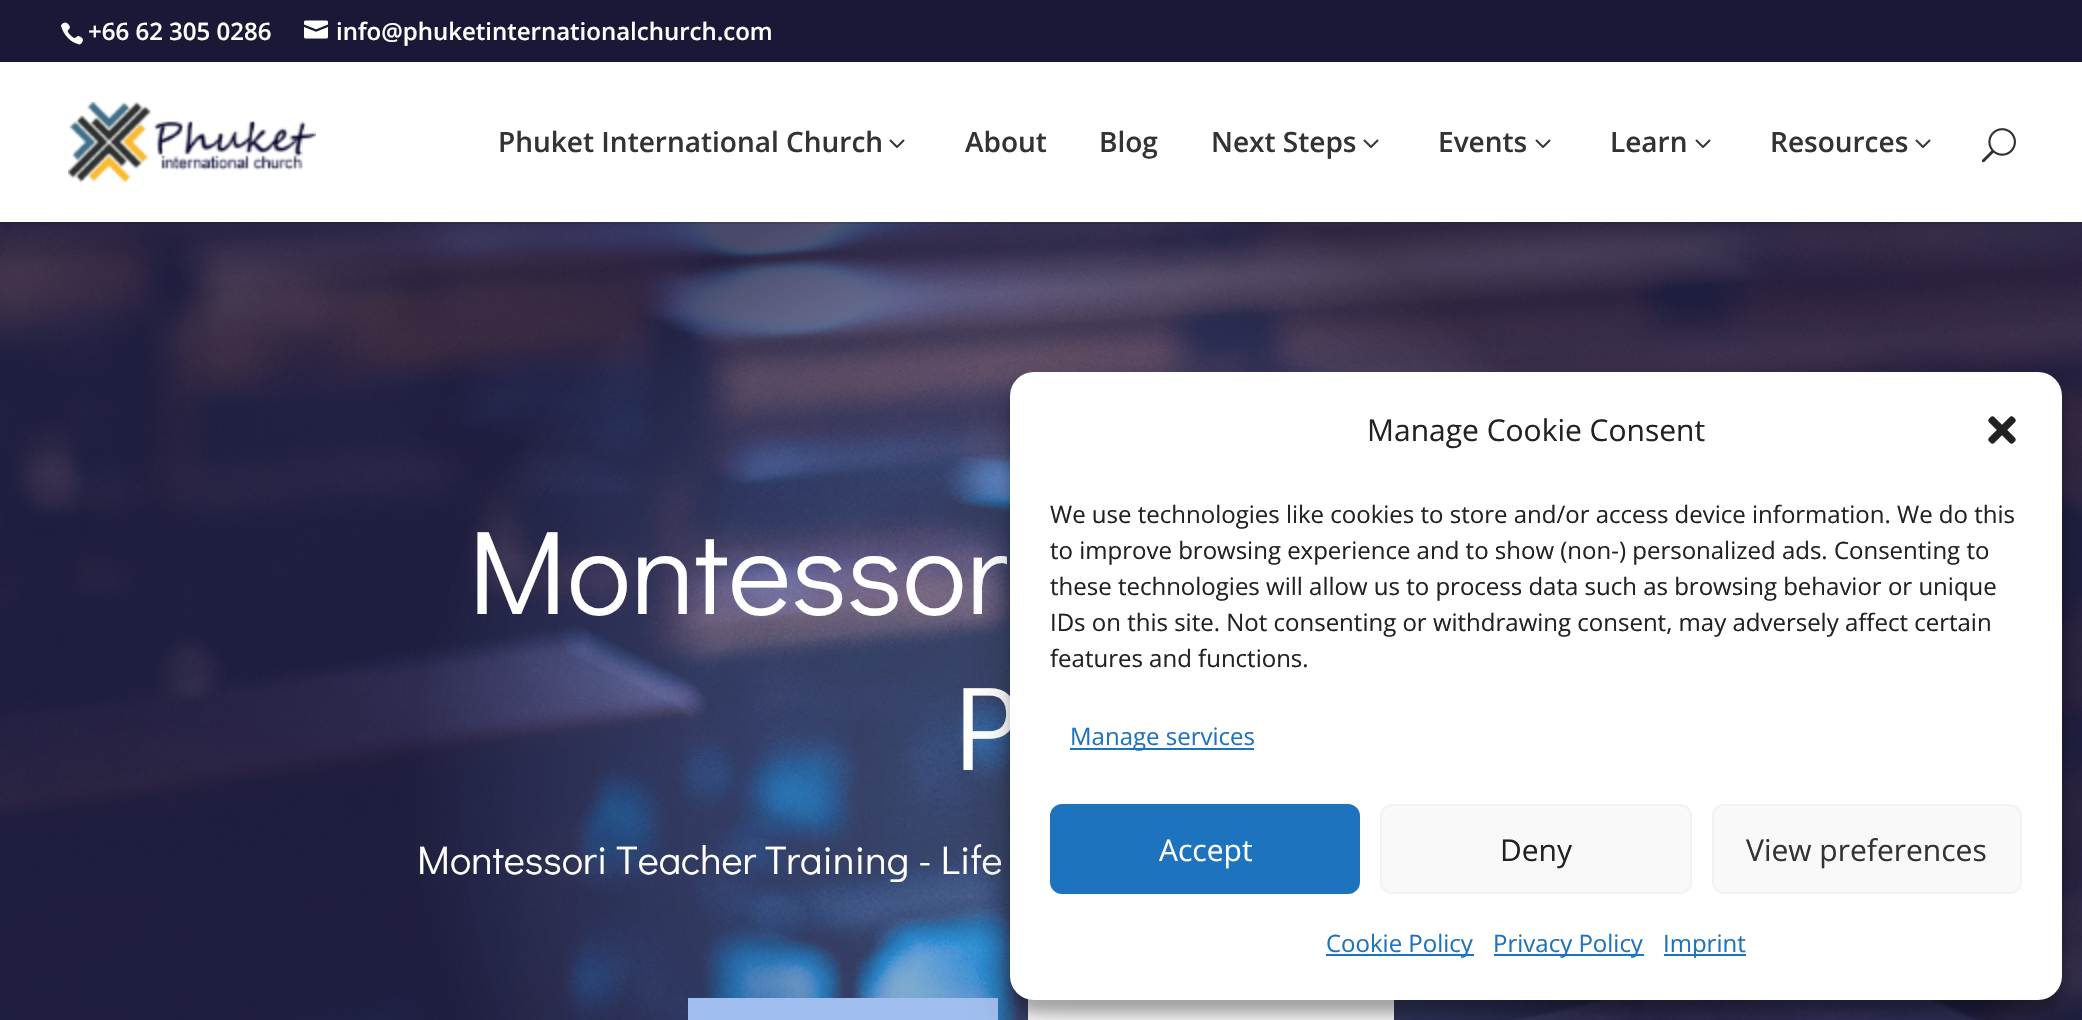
void draw(SkCanvas* canvas) {
    SkPaint paint;
    paint.setAntiAlias(true);
    auto face = [&](const char* family, int weight, float size, bool italic = false) {
        SkFontStyle style(weight, SkFontStyle::kNormal_Width,
            italic ? SkFontStyle::kItalic_Slant : SkFontStyle::kUpright_Slant);
        SkFont result(fontMgr->matchFamilyStyle(family, style), size);
        result.setSubpixel(true);
        return result;
    };
    auto write = [&](const char* s, float x, float y, const SkFont& font, SkColor color) {
        SkPaint ink(SkColor4f::FromColor(color));
        ink.setAntiAlias(true);
        canvas->drawString(s, x, y, font, ink);
    };
    auto block = [&](float x, float y, float w, float h, SkColor color) {
        SkPaint ink(SkColor4f::FromColor(color));
        ink.setAntiAlias(true);
        canvas->drawRect(SkRect::MakeXYWH(x, y, w, h), ink);
    };
    auto card = [&](float x, float y, float w, float h, float radius, SkColor color) {
        SkPaint ink(SkColor4f::FromColor(color));
        ink.setAntiAlias(true);
        canvas->drawRoundRect(SkRect::MakeXYWH(x, y, w, h), radius, radius, ink);
    };
    auto paste = [&](const char* path, float x, float y, float w, float h) {
        auto image = SkImages::DeferredFromEncodedData(SkData::MakeFromFileName(path));
        canvas->drawImageRect(image, SkRect::MakeXYWH(x, y, w, h), SkSamplingOptions());
    };
    canvas->clear(SK_ColorWHITE);
    block(0, 0, 2082, 62, SkColorSetRGB(25, 25, 55));
    paste("pic1.png", 61, 22, 22, 23);
    auto kFont1 = face("Open Sans", 600, 24);
    write("+66 62 305 0286", 88, 40, kFont1, SK_ColorWHITE);
    paste("pic2.png", 304, 20, 24, 19);
    write("info@phuketinternationalchurch.com", 336, 40, kFont1, SK_ColorWHITE);
    paste("pic6.png", 0, 222, 2082, 798);
    block(0, 222, 2082, 2, SkColorSetARGB(26, 0, 0, 0));
    paste("pic3.png", 68, 102, 248, 80);
    auto kFont2 = face("Open Sans", 600, 28);
    write("Phuket International Church", 498, 152, kFont2, SkColorSetRGB(51, 51, 51));
    paste("pic4.png", 889, 139, 16, 9);
    write("About", 965, 152, kFont2, SkColorSetRGB(51, 51, 51));
    write("Blog", 1099, 152, kFont2, SkColorSetRGB(51, 51, 51));
    write("Next Steps", 1211, 152, kFont2, SkColorSetRGB(51, 51, 51));
    paste("pic4.png", 1363, 139, 16, 9);
    write("Events", 1438, 152, kFont2, SkColorSetRGB(51, 51, 51));
    paste("pic4.png", 1535, 139, 16, 9);
    write("Learn", 1610, 152, kFont2, SkColorSetRGB(51, 51, 51));
    paste("pic4.png", 1695, 139, 16, 9);
    write("Resources", 1770, 152, kFont2, SkColorSetRGB(51, 51, 51));
    paste("pic4.png", 1915, 139, 16, 9);
    paste("pic5.png", 1981, 128, 35, 35);
    auto kFont3 = face("Didact Gothic", 400, 120);
    write("Montessor", 468, 614, kFont3, SK_ColorWHITE);
    write("P", 954, 770, kFont3, SK_ColorWHITE);
    auto kFont4 = face("Didact Gothic", 400, 40);
    write("Montessori Teacher Training - Life", 417, 874, kFont4, SK_ColorWHITE);
    block(688, 998, 310, 22, SkColorSetRGB(160, 190, 239));
    block(1028, 999, 366, 21, SK_ColorWHITE);
    paint.setColor(SkColorSetARGB(59, 0, 0, 0));
    paint.setMaskFilter(SkMaskFilter::MakeBlur(kNormal_SkBlurStyle, 6));
    canvas->drawRoundRect(SkRect::MakeXYWH(1010, 384, 1052, 628), 24, 24, paint);
    paint.setMaskFilter(nullptr);
    paint.setColor(SkColorSetARGB(48, 0, 0, 0));
    paint.setMaskFilter(SkMaskFilter::MakeBlur(kNormal_SkBlurStyle, 20));
    canvas->drawRoundRect(SkRect::MakeXYWH(1010, 392, 1052, 628), 24, 24, paint);
    paint.setMaskFilter(nullptr);
    card(1010, 372, 1052, 628, 24, SK_ColorWHITE);
    auto kFont5 = face("Open Sans", 400, 30);
    write("Manage Cookie Consent", 1367, 441, kFont5, SkColorSetRGB(34, 34, 34));
    paste("pic7.png", 1988, 416, 28, 28);
    auto kFont6 = face("Open Sans", 400, 24);
    write("We use technologies like cookies to store and/or access device information. We do this", 1050, 523, kFont6, SkColorSetRGB(34, 34, 34));
    write("to improve browsing experience and to show (non-) personalized ads. Consenting to", 1050, 559, kFont6, SkColorSetRGB(34, 34, 34));
    write("these technologies will allow us to process data such as browsing behavior or unique", 1050, 595, kFont6, SkColorSetRGB(34, 34, 34));
    write("IDs on this site. Not consenting or withdrawing consent, may adversely affect certain", 1050, 631, kFont6, SkColorSetRGB(34, 34, 34));
    write("features and functions.", 1050, 667, kFont6, SkColorSetRGB(34, 34, 34));
    block(1070, 748, 184, 2, SkColorSetRGB(30, 115, 190));
    write("Manage services", 1070, 745, kFont6, SkColorSetRGB(30, 115, 190));
    paint.setColor(SkColorSetRGB(30, 115, 190));
    canvas->drawRoundRect(SkRect::MakeXYWH(1051, 805, 308, 88), 11, 11, paint);
    paint.setStyle(SkPaint::kStroke_Style);
    paint.setStrokeWidth(2);
    canvas->drawRoundRect(SkRect::MakeXYWH(1051, 805, 308, 88), 11, 11, paint);
    write("Accept", 1159, 861, kFont5, SK_ColorWHITE);
    paint.setStyle(SkPaint::kFill_Style);
    paint.setColor(SkColorSetRGB(249, 249, 249));
    canvas->drawRoundRect(SkRect::MakeXYWH(1381, 805, 310, 88), 11, 11, paint);
    paint.setStyle(SkPaint::kStroke_Style);
    paint.setColor(SkColorSetRGB(242, 242, 242));
    canvas->drawRoundRect(SkRect::MakeXYWH(1381, 805, 310, 88), 11, 11, paint);
    write("Deny", 1500, 861, kFont5, SkColorSetRGB(34, 34, 34));
    paint.setStyle(SkPaint::kFill_Style);
    paint.setColor(SkColorSetRGB(249, 249, 249));
    canvas->drawRoundRect(SkRect::MakeXYWH(1713, 805, 308, 88), 11, 11, paint);
    paint.setStyle(SkPaint::kStroke_Style);
    paint.setColor(SkColorSetRGB(242, 242, 242));
    canvas->drawRoundRect(SkRect::MakeXYWH(1713, 805, 308, 88), 11, 11, paint);
    write("View preferences", 1746, 861, kFont5, SkColorSetRGB(51, 51, 51));
    block(1326, 954, 148, 2, SkColorSetRGB(30, 115, 190));
    write("Cookie Policy", 1326, 952, kFont6, SkColorSetRGB(30, 115, 190));
    block(1494, 954, 150, 2, SkColorSetRGB(30, 115, 190));
    write("Privacy Policy", 1493, 952, kFont6, SkColorSetRGB(30, 115, 190));
    block(1664, 954, 82, 2, SkColorSetRGB(30, 115, 190));
    write("Imprint", 1663, 952, kFont6, SkColorSetRGB(30, 115, 190));
}
